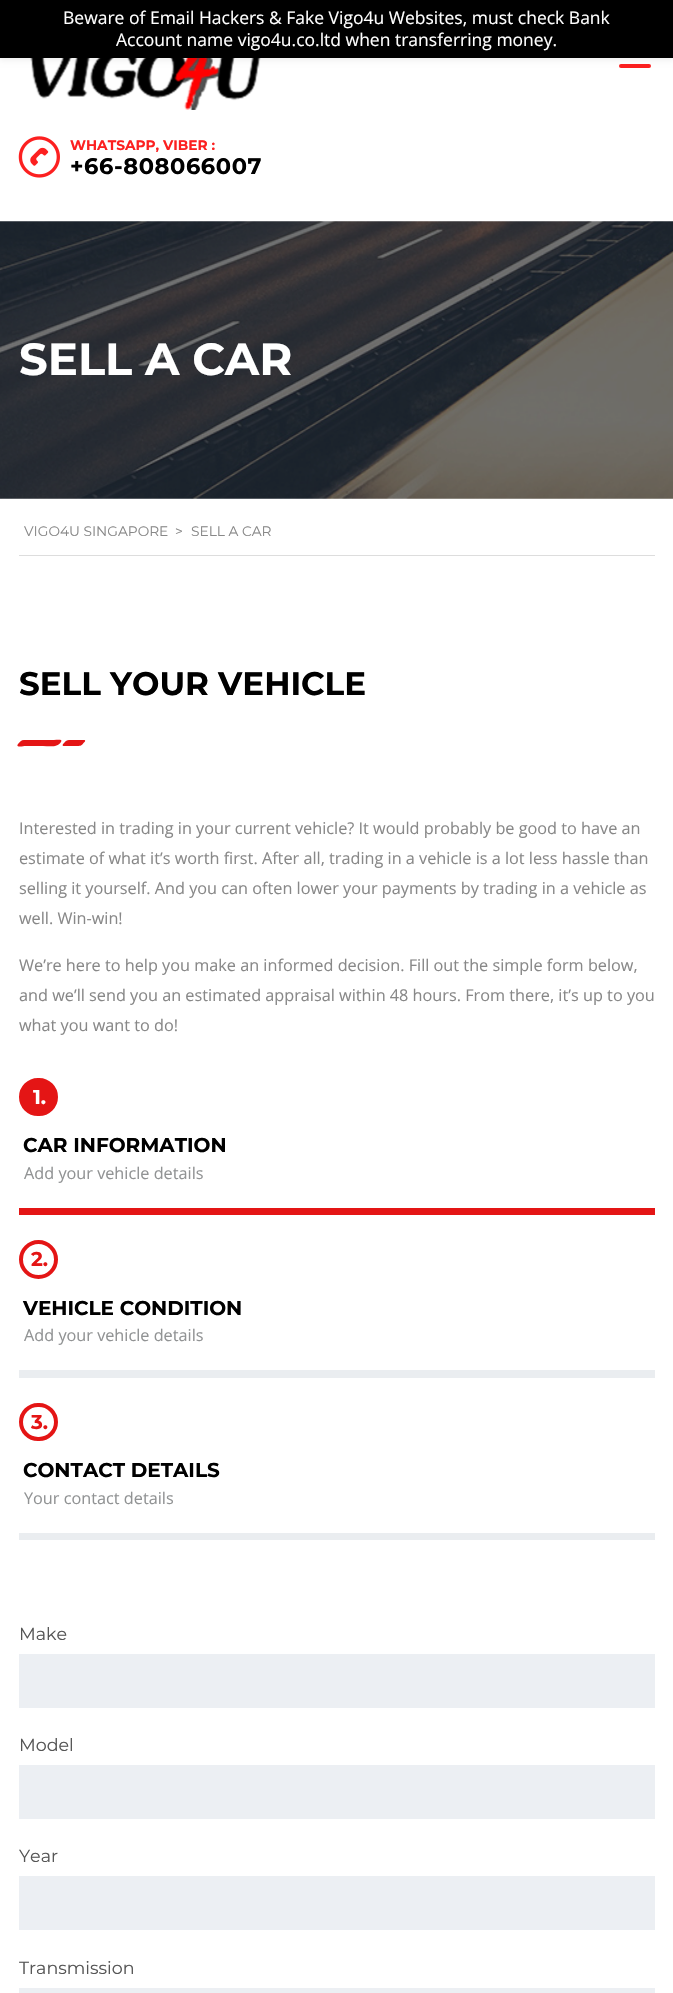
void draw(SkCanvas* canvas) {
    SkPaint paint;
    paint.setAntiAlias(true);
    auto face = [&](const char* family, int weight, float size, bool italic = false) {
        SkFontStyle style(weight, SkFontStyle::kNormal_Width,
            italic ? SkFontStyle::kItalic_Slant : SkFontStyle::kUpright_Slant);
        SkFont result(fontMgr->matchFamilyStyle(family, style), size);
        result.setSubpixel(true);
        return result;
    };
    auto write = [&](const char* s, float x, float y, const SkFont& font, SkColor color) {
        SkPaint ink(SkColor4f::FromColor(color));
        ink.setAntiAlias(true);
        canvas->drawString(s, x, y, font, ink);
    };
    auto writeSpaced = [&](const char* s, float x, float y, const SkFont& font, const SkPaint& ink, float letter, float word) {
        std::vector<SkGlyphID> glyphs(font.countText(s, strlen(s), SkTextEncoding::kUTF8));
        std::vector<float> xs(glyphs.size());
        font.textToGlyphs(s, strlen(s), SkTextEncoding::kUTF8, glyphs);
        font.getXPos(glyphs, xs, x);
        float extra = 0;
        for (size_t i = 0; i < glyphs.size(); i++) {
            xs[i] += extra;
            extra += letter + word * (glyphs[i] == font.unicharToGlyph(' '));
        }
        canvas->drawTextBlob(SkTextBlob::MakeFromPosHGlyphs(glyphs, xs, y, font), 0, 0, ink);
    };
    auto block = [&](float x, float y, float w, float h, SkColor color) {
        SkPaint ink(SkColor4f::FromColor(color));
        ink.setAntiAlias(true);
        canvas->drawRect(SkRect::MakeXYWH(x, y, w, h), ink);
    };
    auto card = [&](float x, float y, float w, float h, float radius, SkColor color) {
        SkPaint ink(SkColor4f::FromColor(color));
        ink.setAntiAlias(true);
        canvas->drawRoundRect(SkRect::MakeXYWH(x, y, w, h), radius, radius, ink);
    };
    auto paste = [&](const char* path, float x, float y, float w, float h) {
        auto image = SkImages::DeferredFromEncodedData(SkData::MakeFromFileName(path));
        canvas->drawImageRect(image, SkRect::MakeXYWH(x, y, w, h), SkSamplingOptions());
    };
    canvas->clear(SK_ColorWHITE);
    paste("pic1.png", 30, 58, 231, 52);
    card(619, 64, 32, 4, 2, SkColorSetRGB(252, 32, 32));
    paint.setColor(SkColorSetARGB(13, 0, 0, 0));
    paint.setMaskFilter(SkMaskFilter::MakeBlur(kNormal_SkBlurStyle, 2.5f));
    canvas->drawRect(SkRect::MakeXYWH(0, 4, 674, 57), paint);
    paint.setMaskFilter(nullptr);
    block(0, 0, 673, 58, SK_ColorBLACK);
    auto kFont1 = face("Open Sans", 400, 17.5f);
    write("Beware of Email Hackers & Fake Vigo4u Websites, must check Bank", 63, 24, kFont1, SK_ColorWHITE);
    write("Account name vigo4u.co.ltd when transferring money.", 116, 46, kFont1, SK_ColorWHITE);
    paste("pic2.png", 18, 136, 42, 42);
    auto kFont2 = face("Montserrat", 700, 13.75f);
    write("WHATSAPP, VIBER :", 70, 150, kFont2, SkColorSetRGB(252, 32, 32));
    auto kFont3 = face("Montserrat", 700, 22.5f);
    paint.setColor(SK_ColorBLACK);
    writeSpaced("+66-808066007", 70, 174, kFont3, paint, 0.6f, 0);
    paste("pic3.png", 0, 221, 673, 278);
    auto kFont4 = face("Montserrat", 700, 45);
    write("SELL A CAR", 19, 375, kFont4, SK_ColorWHITE);
    block(19, 555, 636, 1, SkColorSetRGB(221, 221, 221));
    auto kFont5 = face("Montserrat", 400, 13.75f);
    write("VIGO4U SINGAPORE", 24, 536, kFont5, SkColorSetRGB(136, 136, 136));
    write(">", 175, 536, kFont5, SkColorSetRGB(136, 136, 136));
    write("SELL A CAR", 191, 536, kFont5, SkColorSetRGB(136, 136, 136));
    auto kFont6 = face("Montserrat", 700, 32.5f);
    write("SELL YOUR VEHICLE", 19, 695, kFont6, SK_ColorBLACK);
    paint.setColor(SkColorSetRGB(228, 21, 21));
    canvas->drawPath(SkPathBuilder().moveTo(24, 740).lineTo(54, 740).cubicTo(58, 740, 63, 739, 61, 742).cubicTo(57, 748, 49, 746, 43, 746).lineTo(25, 746).cubicTo(24, 746, 15, 748, 18, 744).cubicTo(20, 742, 21, 740, 24, 740).close().detach(), paint);
    canvas->drawPath(SkPathBuilder().moveTo(69, 740).lineTo(84, 740).cubicTo(85, 740, 85.5f, 740.5f, 85, 741.5f).lineTo(83.5f, 743).cubicTo(81.5f, 746, 80, 746, 76, 746).lineTo(68.5f, 746).cubicTo(64.5f, 746, 60, 747, 64.5f, 742.5f).cubicTo(65.5f, 741, 67, 740, 69, 740).close().detach(), paint);
    auto kFont7 = face("Open Sans", 400, 16.25f);
    write("Interested in trading in your current vehicle? It would probably be good to have an", 19, 834, kFont7, SkColorSetRGB(136, 136, 136));
    write("estimate of what it’s worth first. After all, trading in a vehicle is a lot less hassle than", 19, 864, kFont7, SkColorSetRGB(136, 136, 136));
    write("selling it yourself. And you can often lower your payments by trading in a vehicle as", 19, 894, kFont7, SkColorSetRGB(136, 136, 136));
    write("well. Win-win!", 19, 924, kFont7, SkColorSetRGB(136, 136, 136));
    write("We’re here to help you make an informed decision. Fill out the simple form below,", 19, 971, kFont7, SkColorSetRGB(136, 136, 136));
    write("and we’ll send you an estimated appraisal within 48 hours. From there, it’s up to you", 19, 1001, kFont7, SkColorSetRGB(136, 136, 136));
    write("what you want to do!", 19, 1031, kFont7, SkColorSetRGB(136, 136, 136));
    block(19, 1208, 636, 7, SkColorSetRGB(228, 21, 21));
    canvas->drawRoundRect(SkRect::MakeXYWH(21, 1080, 35, 34), 17, 17, paint);
    paint.setStyle(SkPaint::kStroke_Style);
    paint.setStrokeWidth(4);
    canvas->drawRoundRect(SkRect::MakeXYWH(21, 1080, 35, 34), 17, 17, paint);
    auto kFont8 = face("Montserrat", 700, 20);
    write("1.", 33, 1104, kFont8, SK_ColorWHITE);
    write("CAR INFORMATION", 23, 1152, kFont8, SK_ColorBLACK);
    write("Add your vehicle details", 24, 1179, kFont7, SkColorSetRGB(145, 147, 148));
    block(19, 1370, 636, 8, SkColorSetRGB(234, 237, 240));
    canvas->drawCircle(38.5f, 1259.5f, 17.5f, paint);
    write("2.", 31, 1266, kFont8, SkColorSetRGB(228, 21, 21));
    write("VEHICLE CONDITION", 23, 1315, kFont8, SK_ColorBLACK);
    write("Add your vehicle details", 24, 1341, kFont7, SkColorSetRGB(145, 147, 148));
    block(19, 1533, 636, 7, SkColorSetRGB(234, 237, 240));
    canvas->drawRoundRect(SkRect::MakeXYWH(21, 1405, 35, 34), 17, 17, paint);
    write("3.", 31, 1429, kFont8, SkColorSetRGB(228, 21, 21));
    write("CONTACT DETAILS", 23, 1477, kFont8, SK_ColorBLACK);
    write("Your contact details", 24, 1504, kFont7, SkColorSetRGB(145, 147, 148));
    auto kFont9 = face("Montserrat", 400, 17.5f);
    write("Make", 19, 1640, kFont9, SkColorSetRGB(85, 85, 85));
    block(19, 1654, 636, 54, SkColorSetRGB(236, 239, 243));
    write("Model", 19, 1751, kFont9, SkColorSetRGB(85, 85, 85));
    block(19, 1765, 636, 54, SkColorSetRGB(236, 239, 243));
    write("Year", 19, 1862, kFont9, SkColorSetRGB(85, 85, 85));
    block(19, 1876, 636, 54, SkColorSetRGB(236, 239, 243));
    write("Transmission", 19, 1974, kFont9, SkColorSetRGB(85, 85, 85));
    block(19, 1988, 636, 5, SkColorSetRGB(236, 239, 243));
}
